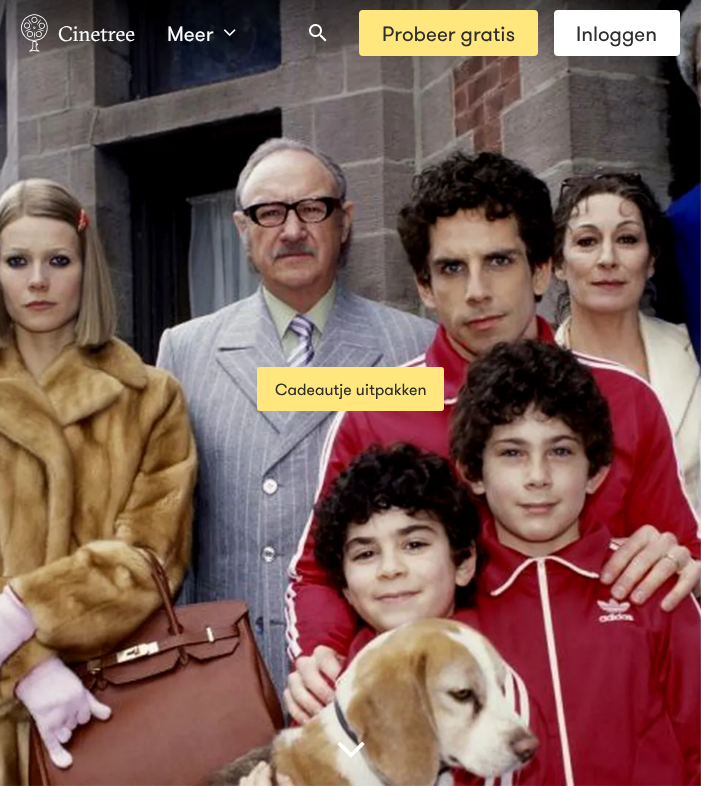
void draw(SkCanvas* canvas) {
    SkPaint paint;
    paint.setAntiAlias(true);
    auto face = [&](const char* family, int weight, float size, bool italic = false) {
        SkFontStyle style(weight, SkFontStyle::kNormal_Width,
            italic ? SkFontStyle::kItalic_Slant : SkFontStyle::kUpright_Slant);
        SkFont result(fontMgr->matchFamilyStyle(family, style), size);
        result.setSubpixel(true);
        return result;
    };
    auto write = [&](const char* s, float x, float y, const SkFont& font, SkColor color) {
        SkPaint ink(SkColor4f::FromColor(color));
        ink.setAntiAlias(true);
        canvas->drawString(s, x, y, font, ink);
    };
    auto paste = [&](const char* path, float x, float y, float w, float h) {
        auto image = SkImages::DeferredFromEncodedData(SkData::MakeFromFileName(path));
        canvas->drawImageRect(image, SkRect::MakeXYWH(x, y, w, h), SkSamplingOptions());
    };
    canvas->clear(SK_ColorWHITE);
    paste("pic4.png", 0, 0, 701, 786);
    {
        const SkColor colors[] = {SkColorSetARGB(128, 0, 0, 0), SkColorSetARGB(0, 0, 0, 0)};
        const float stops[] = {0, 1};
        const SkPoint ends[] = {{351, 0}, {351, 66}};
        paint.setShader(SkGradientShader::MakeLinear(ends, colors, stops, 2, SkTileMode::kClamp));
        paint.setAlpha(255);
    }
    canvas->drawRect(SkRect::MakeXYWH(0, 0, 701, 63), paint);
    paste("pic1.png", 21, 14, 27, 38);
    auto kFont1 = face("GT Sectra", 400, 20.75f);
    write("Cinetree", 58, 41, kFont1, SK_ColorWHITE);
    auto kFont2 = face("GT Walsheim", 400, 20.75f);
    write("Meer", 167, 41, kFont2, SK_ColorWHITE);
    paste("pic2.png", 223, 29, 13, 7);
    paste("pic3.png", 309, 24, 18, 18);
    paint.setShader(nullptr);
    paint.setColor(SkColorSetRGB(255, 231, 126));
    canvas->drawRoundRect(SkRect::MakeXYWH(360, 11, 177, 44), 3, 3, paint);
    paint.setStyle(SkPaint::kStroke_Style);
    paint.setStrokeWidth(2);
    canvas->drawRoundRect(SkRect::MakeXYWH(360, 11, 177, 44), 3, 3, paint);
    write("Probeer gratis", 382, 41, kFont2, SkColorSetRGB(46, 46, 46));
    paint.setStyle(SkPaint::kFill_Style);
    paint.setColor(SK_ColorWHITE);
    canvas->drawRoundRect(SkRect::MakeXYWH(555, 11, 124, 44), 3, 3, paint);
    paint.setStyle(SkPaint::kStroke_Style);
    canvas->drawRoundRect(SkRect::MakeXYWH(555, 11, 124, 44), 3, 3, paint);
    write("Inloggen", 576, 41, kFont2, SkColorSetRGB(46, 46, 46));
    paint.setStyle(SkPaint::kFill_Style);
    paint.setColor(SkColorSetRGB(255, 231, 126));
    canvas->drawRoundRect(SkRect::MakeXYWH(258, 368, 185, 42), 2, 2, paint);
    paint.setStyle(SkPaint::kStroke_Style);
    canvas->drawRoundRect(SkRect::MakeXYWH(258, 368, 185, 42), 2, 2, paint);
    auto kFont3 = face("GT Walsheim", 400, 16);
    write("Cadeautje uitpakken", 275, 395, kFont3, SkColorSetRGB(46, 46, 46));
    paste("pic5.png", 337, 742, 28, 16);
}
